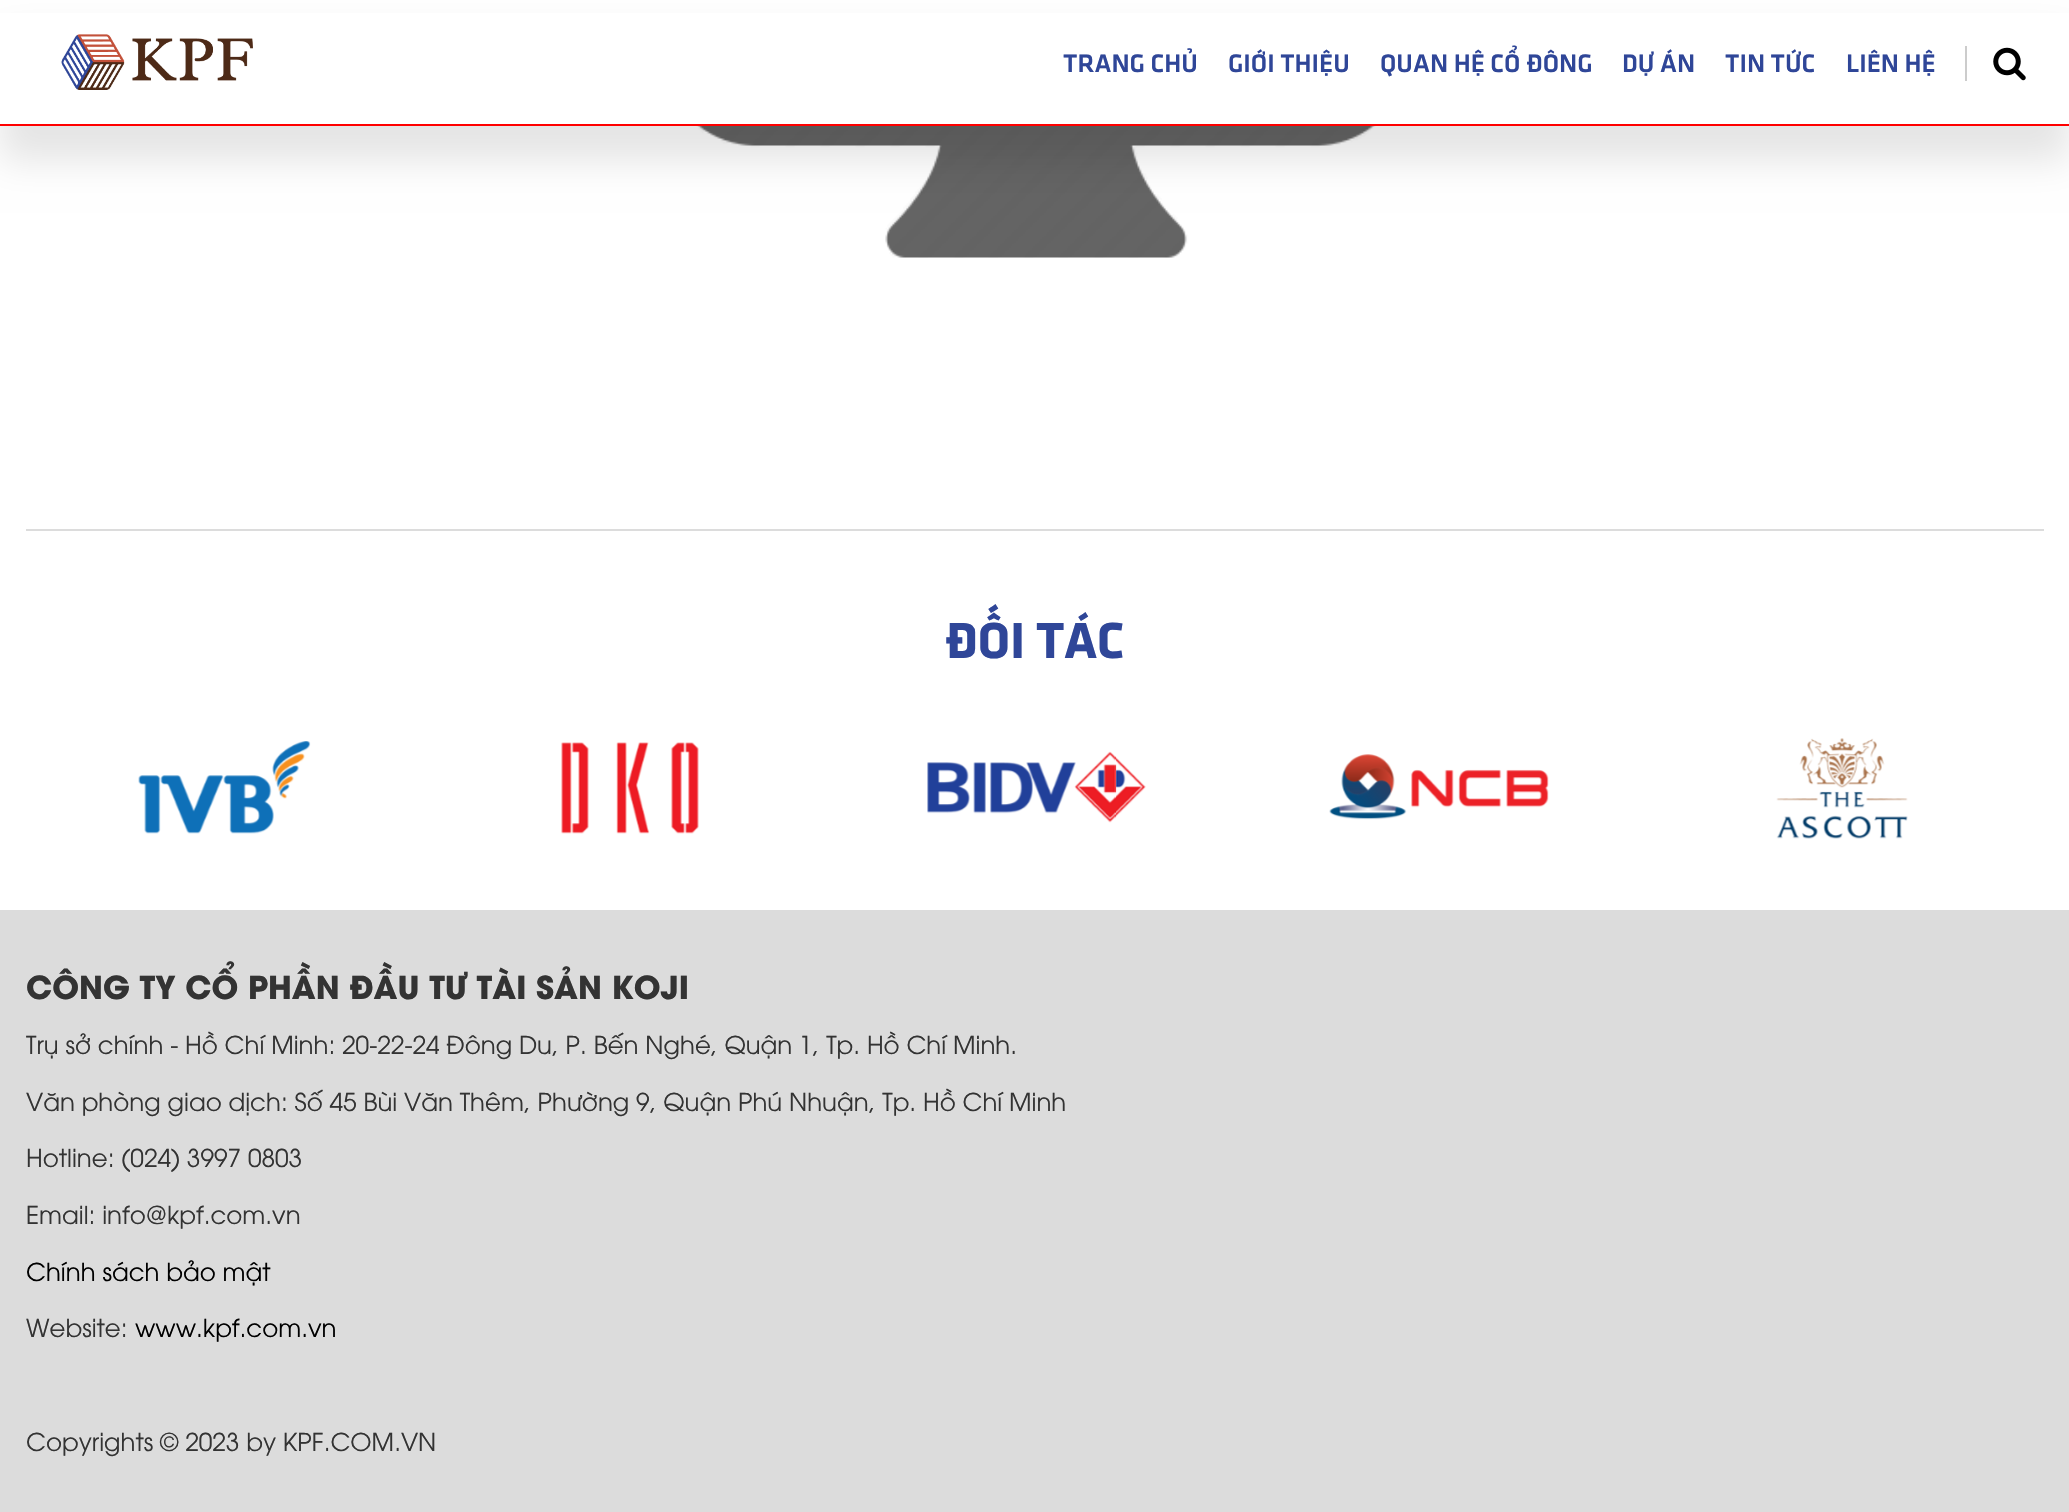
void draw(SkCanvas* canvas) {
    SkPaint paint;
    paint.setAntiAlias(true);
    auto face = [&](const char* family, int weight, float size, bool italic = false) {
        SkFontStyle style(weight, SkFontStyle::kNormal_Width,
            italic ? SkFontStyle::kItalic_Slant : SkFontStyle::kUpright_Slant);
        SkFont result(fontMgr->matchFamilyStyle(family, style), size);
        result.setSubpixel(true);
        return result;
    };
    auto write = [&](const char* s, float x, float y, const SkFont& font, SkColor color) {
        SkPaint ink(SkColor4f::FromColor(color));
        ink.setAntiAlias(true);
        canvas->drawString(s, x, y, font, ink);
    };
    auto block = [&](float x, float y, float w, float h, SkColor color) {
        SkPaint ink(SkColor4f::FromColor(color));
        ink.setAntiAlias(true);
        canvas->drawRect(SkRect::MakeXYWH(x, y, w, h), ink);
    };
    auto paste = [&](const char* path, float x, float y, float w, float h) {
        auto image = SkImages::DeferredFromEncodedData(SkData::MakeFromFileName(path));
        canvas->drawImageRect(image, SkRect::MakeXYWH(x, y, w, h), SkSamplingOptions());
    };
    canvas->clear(SK_ColorWHITE);
    paste("pic3.png", 696, 126, 680, 132);
    paint.setColor(SkColorSetARGB(26, 0, 0, 0));
    paint.setMaskFilter(SkMaskFilter::MakeBlur(kNormal_SkBlurStyle, 17.5f));
    canvas->drawRect(SkRect::MakeXYWH(0, 35, 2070, 126), paint);
    paint.setMaskFilter(nullptr);
    block(0, 13, 2069, 111, SK_ColorWHITE);
    block(0, 124, 2069, 2, SkColorSetRGB(255, 0, 0));
    paste("pic1.png", 61, 34, 192, 56);
    auto kFont1 = face("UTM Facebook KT", 400, 26.25f);
    write("TRANG CHỦ", 1063, 72, kFont1, SkColorSetRGB(47, 70, 152));
    write("GIỚI THIỆU", 1228, 72, kFont1, SkColorSetRGB(47, 70, 152));
    write("QUAN HỆ CỔ ĐÔNG", 1380, 72, kFont1, SkColorSetRGB(47, 70, 152));
    write("DỰ ÁN", 1622, 72, kFont1, SkColorSetRGB(47, 70, 152));
    write("TIN TỨC", 1725, 72, kFont1, SkColorSetRGB(47, 70, 152));
    write("LIÊN HỆ", 1846, 72, kFont1, SkColorSetRGB(47, 70, 152));
    block(1965, 46, 2, 35, SkColorSetRGB(204, 204, 204));
    paste("pic2.png", 1993, 47, 33, 34);
    block(26, 529, 2018, 2, SkColorSetRGB(220, 220, 220));
    auto kFont2 = face("UTM Facebook KT", 700, 52.5f);
    write("ĐỐI TÁC", 945, 658, kFont2, SkColorSetRGB(47, 70, 152));
    paste("pic4.png", 138, 741, 173, 93);
    paste("pic5.png", 561, 742, 138, 92);
    paste("pic6.png", 927, 751, 219, 72);
    paste("pic7.png", 1329, 754, 220, 66);
    paste("pic8.png", 1776, 738, 132, 101);
    block(0, 910, 2069, 602, SkColorSetRGB(220, 220, 220));
    auto kFont3 = face("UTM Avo", 700, 31.5f);
    write("CÔNG TY CỔ PHẦN ĐẦU TƯ TÀI SẢN KOJI", 26, 999, kFont3, SkColorSetRGB(51, 51, 51));
    auto kFont4 = face("UTM Avo", 400, 24.5f);
    write("Trụ sở chính - Hồ Chí Minh: 20-22-24 Đông Du, P. Bến Nghé, Quận 1, Tp. Hồ Chí Minh.", 26, 1054, kFont4, SkColorSetRGB(51, 51, 51));
    write("Văn phòng giao dịch: Số 45 Bùi Văn Thêm, Phường 9, Quận Phú Nhuận, Tp. Hồ Chí Minh", 26, 1111, kFont4, SkColorSetRGB(51, 51, 51));
    write("Hotline: (024) 3997 0803", 26, 1167, kFont4, SkColorSetRGB(51, 51, 51));
    write("Email: info@kpf.com.vn", 26, 1224, kFont4, SkColorSetRGB(51, 51, 51));
    write("Chính sách bảo mật", 26, 1281, kFont4, SK_ColorBLACK);
    write("Website:", 26, 1337, kFont4, SkColorSetRGB(51, 51, 51));
    write("www.kpf.com.vn", 135, 1337, kFont4, SK_ColorBLACK);
    write("Copyrights © 2023 by KPF.COM.VN", 26, 1451, kFont4, SkColorSetRGB(51, 51, 51));
}
